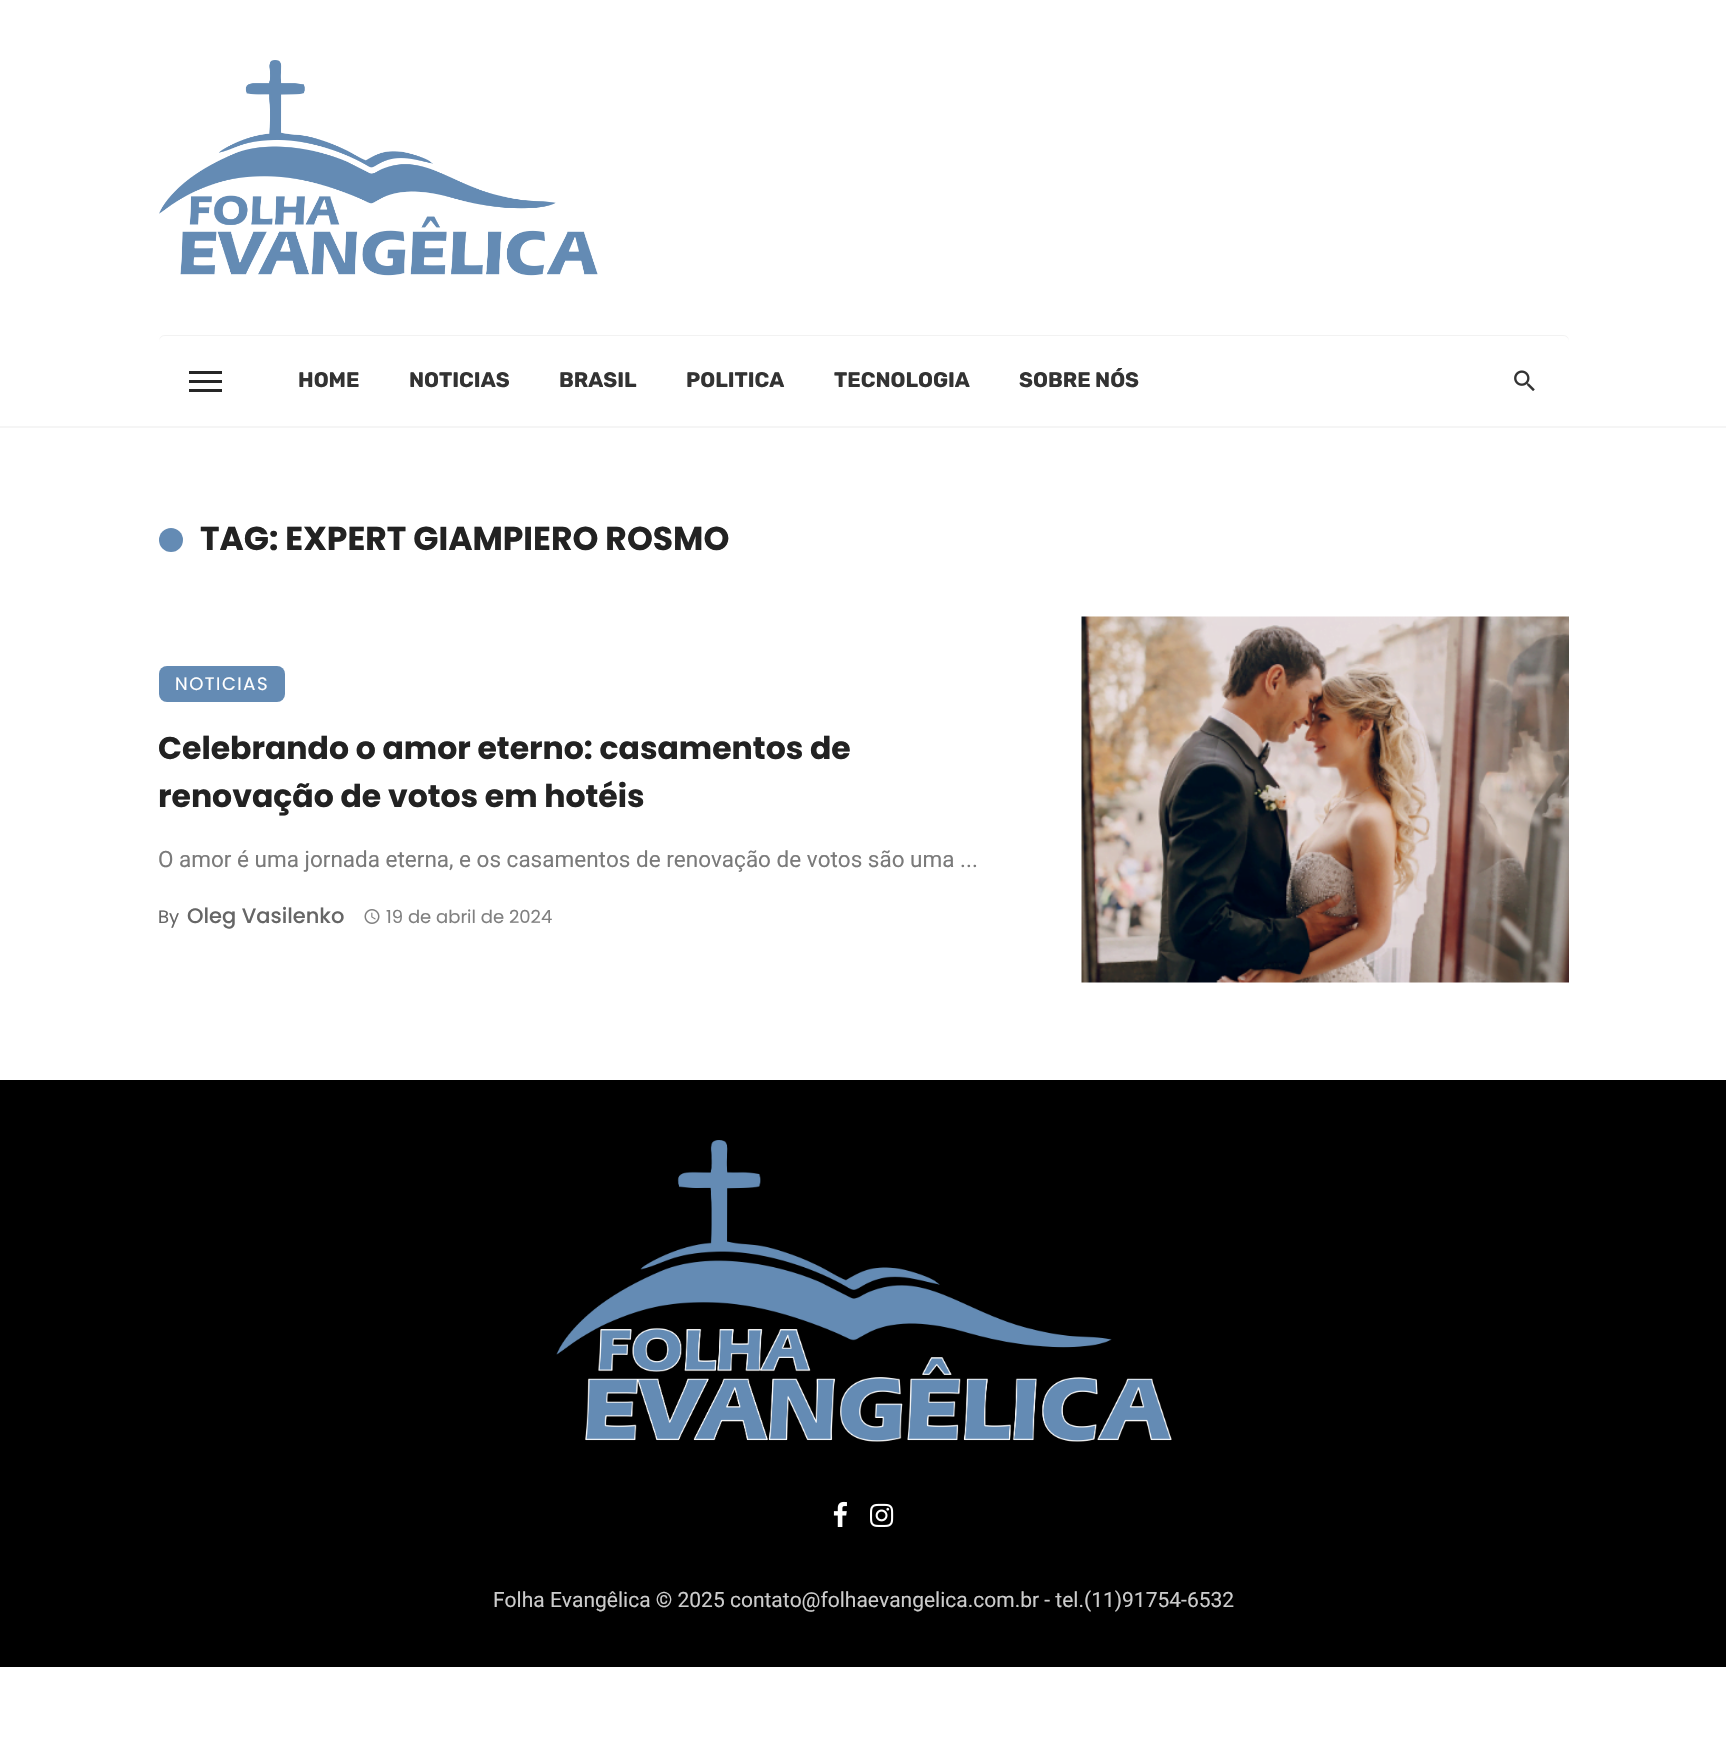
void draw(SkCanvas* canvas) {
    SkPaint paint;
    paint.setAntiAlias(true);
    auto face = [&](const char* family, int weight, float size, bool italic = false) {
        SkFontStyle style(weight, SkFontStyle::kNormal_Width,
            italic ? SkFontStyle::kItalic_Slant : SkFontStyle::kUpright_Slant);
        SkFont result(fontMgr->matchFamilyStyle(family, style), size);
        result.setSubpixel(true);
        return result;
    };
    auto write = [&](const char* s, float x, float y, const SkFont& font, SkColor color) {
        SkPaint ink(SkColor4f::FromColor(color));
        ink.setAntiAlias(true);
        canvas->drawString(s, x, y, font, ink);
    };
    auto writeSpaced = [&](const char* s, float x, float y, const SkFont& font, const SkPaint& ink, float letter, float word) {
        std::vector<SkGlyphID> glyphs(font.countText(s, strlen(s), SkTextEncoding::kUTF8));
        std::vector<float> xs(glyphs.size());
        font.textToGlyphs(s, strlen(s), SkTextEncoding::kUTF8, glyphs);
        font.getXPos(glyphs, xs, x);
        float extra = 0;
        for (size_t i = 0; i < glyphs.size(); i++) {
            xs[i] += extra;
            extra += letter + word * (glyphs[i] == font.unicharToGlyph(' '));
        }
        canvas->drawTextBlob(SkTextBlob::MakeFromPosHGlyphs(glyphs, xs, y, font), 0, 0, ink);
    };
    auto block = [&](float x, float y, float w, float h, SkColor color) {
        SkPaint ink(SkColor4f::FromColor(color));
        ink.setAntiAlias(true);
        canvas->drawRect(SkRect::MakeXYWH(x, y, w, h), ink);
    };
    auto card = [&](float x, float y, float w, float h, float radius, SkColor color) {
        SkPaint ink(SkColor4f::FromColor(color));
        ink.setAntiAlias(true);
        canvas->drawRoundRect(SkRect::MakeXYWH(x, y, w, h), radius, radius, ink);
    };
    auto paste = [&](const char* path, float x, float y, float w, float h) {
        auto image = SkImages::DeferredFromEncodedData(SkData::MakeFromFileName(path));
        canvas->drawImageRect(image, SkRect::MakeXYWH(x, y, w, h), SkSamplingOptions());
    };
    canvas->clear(SK_ColorWHITE);
    paint.setColor(SkColorSetRGB(245, 245, 245));
    canvas->drawPath(SkPathBuilder().moveTo(0, 426).lineTo(0, 428).lineTo(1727, 428).lineTo(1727, 2).lineTo(1726, 2).lineTo(1726, 426).close().detach(), paint);
    paste("pic1.png", 159, 60, 439, 216);
    paint.setColor(SkColorSetRGB(242, 242, 242));
    canvas->drawPath(SkPathBuilder().moveTo(165, 335).cubicTo(161, 335, 159, 338, 159, 342).cubicTo(159, 339, 162, 336, 165, 336).lineTo(1563, 336).cubicTo(1566, 336, 1569, 339, 1569, 342).cubicTo(1569, 338, 1567, 335, 1563, 335).close().detach(), paint);
    card(159, 336, 1410, 90, 6, SK_ColorWHITE);
    block(189, 380, 33, 3, SkColorSetRGB(38, 38, 38));
    block(189, 371, 33, 3, SkColorSetRGB(38, 38, 38));
    block(189, 389, 33, 3, SkColorSetRGB(38, 38, 38));
    auto kFont1 = face("Rubik", 700, 21);
    write("HOME", 298, 387, kFont1, SkColorSetRGB(51, 51, 51));
    write("NOTICIAS", 409, 387, kFont1, SkColorSetRGB(51, 51, 51));
    write("BRASIL", 559, 387, kFont1, SkColorSetRGB(51, 51, 51));
    write("POLITICA", 686, 387, kFont1, SkColorSetRGB(51, 51, 51));
    write("TECNOLOGIA", 834, 387, kFont1, SkColorSetRGB(51, 51, 51));
    write("SOBRE NÓS", 1019, 387, kFont1, SkColorSetRGB(51, 51, 51));
    paste("pic2.png", 1514, 370, 21, 21);
    paint.setColor(SkColorSetRGB(100, 139, 180));
    canvas->drawCircle(171, 540, 12, paint);
    auto kFont2 = face("Poppins", 700, 33);
    write("TAG: EXPERT GIAMPIERO ROSMO", 200, 550, kFont2, SkColorSetRGB(34, 34, 34));
    card(159, 666, 126, 36, 8, SkColorSetRGB(100, 139, 180));
    auto kFont3 = face("Poppins", 400, 18);
    paint.setColor(SK_ColorWHITE);
    writeSpaced("NOTICIAS", 175, 690, kFont3, paint, 1.5f, 0);
    auto kFont4 = face("Poppins", 700, 31.5f);
    write("Celebrando o amor eterno: casamentos de", 158, 759, kFont4, SkColorSetRGB(34, 34, 34));
    write("renovação de votos em hotéis", 158, 807, kFont4, SkColorSetRGB(34, 34, 34));
    auto kFont5 = face("Roboto", 400, 22.5f);
    write("O amor é uma jornada eterna, e os casamentos de renovação de votos são uma ...", 158, 867, kFont5, SkColorSetRGB(122, 122, 122));
    write("By", 158, 923, kFont3, SkColorSetRGB(102, 102, 102));
    auto kFont6 = face("Poppins", 500, 21);
    write("Oleg Vasilenko", 187, 923, kFont6, SkColorSetRGB(102, 102, 102));
    paste("pic3.png", 364, 909, 16, 15);
    write("19 de abril de 2024", 386, 923, kFont3, SkColorSetRGB(128, 128, 128));
    paste("pic4.png", 1081, 616, 488, 367);
    block(0, 1080, 1726, 587, SK_ColorBLACK);
    paste("pic5.png", 556, 1140, 616, 302);
    paste("pic6.png", 833, 1501, 14, 26);
    paste("pic7.png", 870, 1503, 24, 24);
    auto kFont7 = face("Roboto", 400, 21);
    write("Folha Evangêlica © 2025 contato@folhaevangelica.com.br - tel.(11)91754-6532", 493, 1607, kFont7, SkColorSetRGB(204, 204, 204));
}
